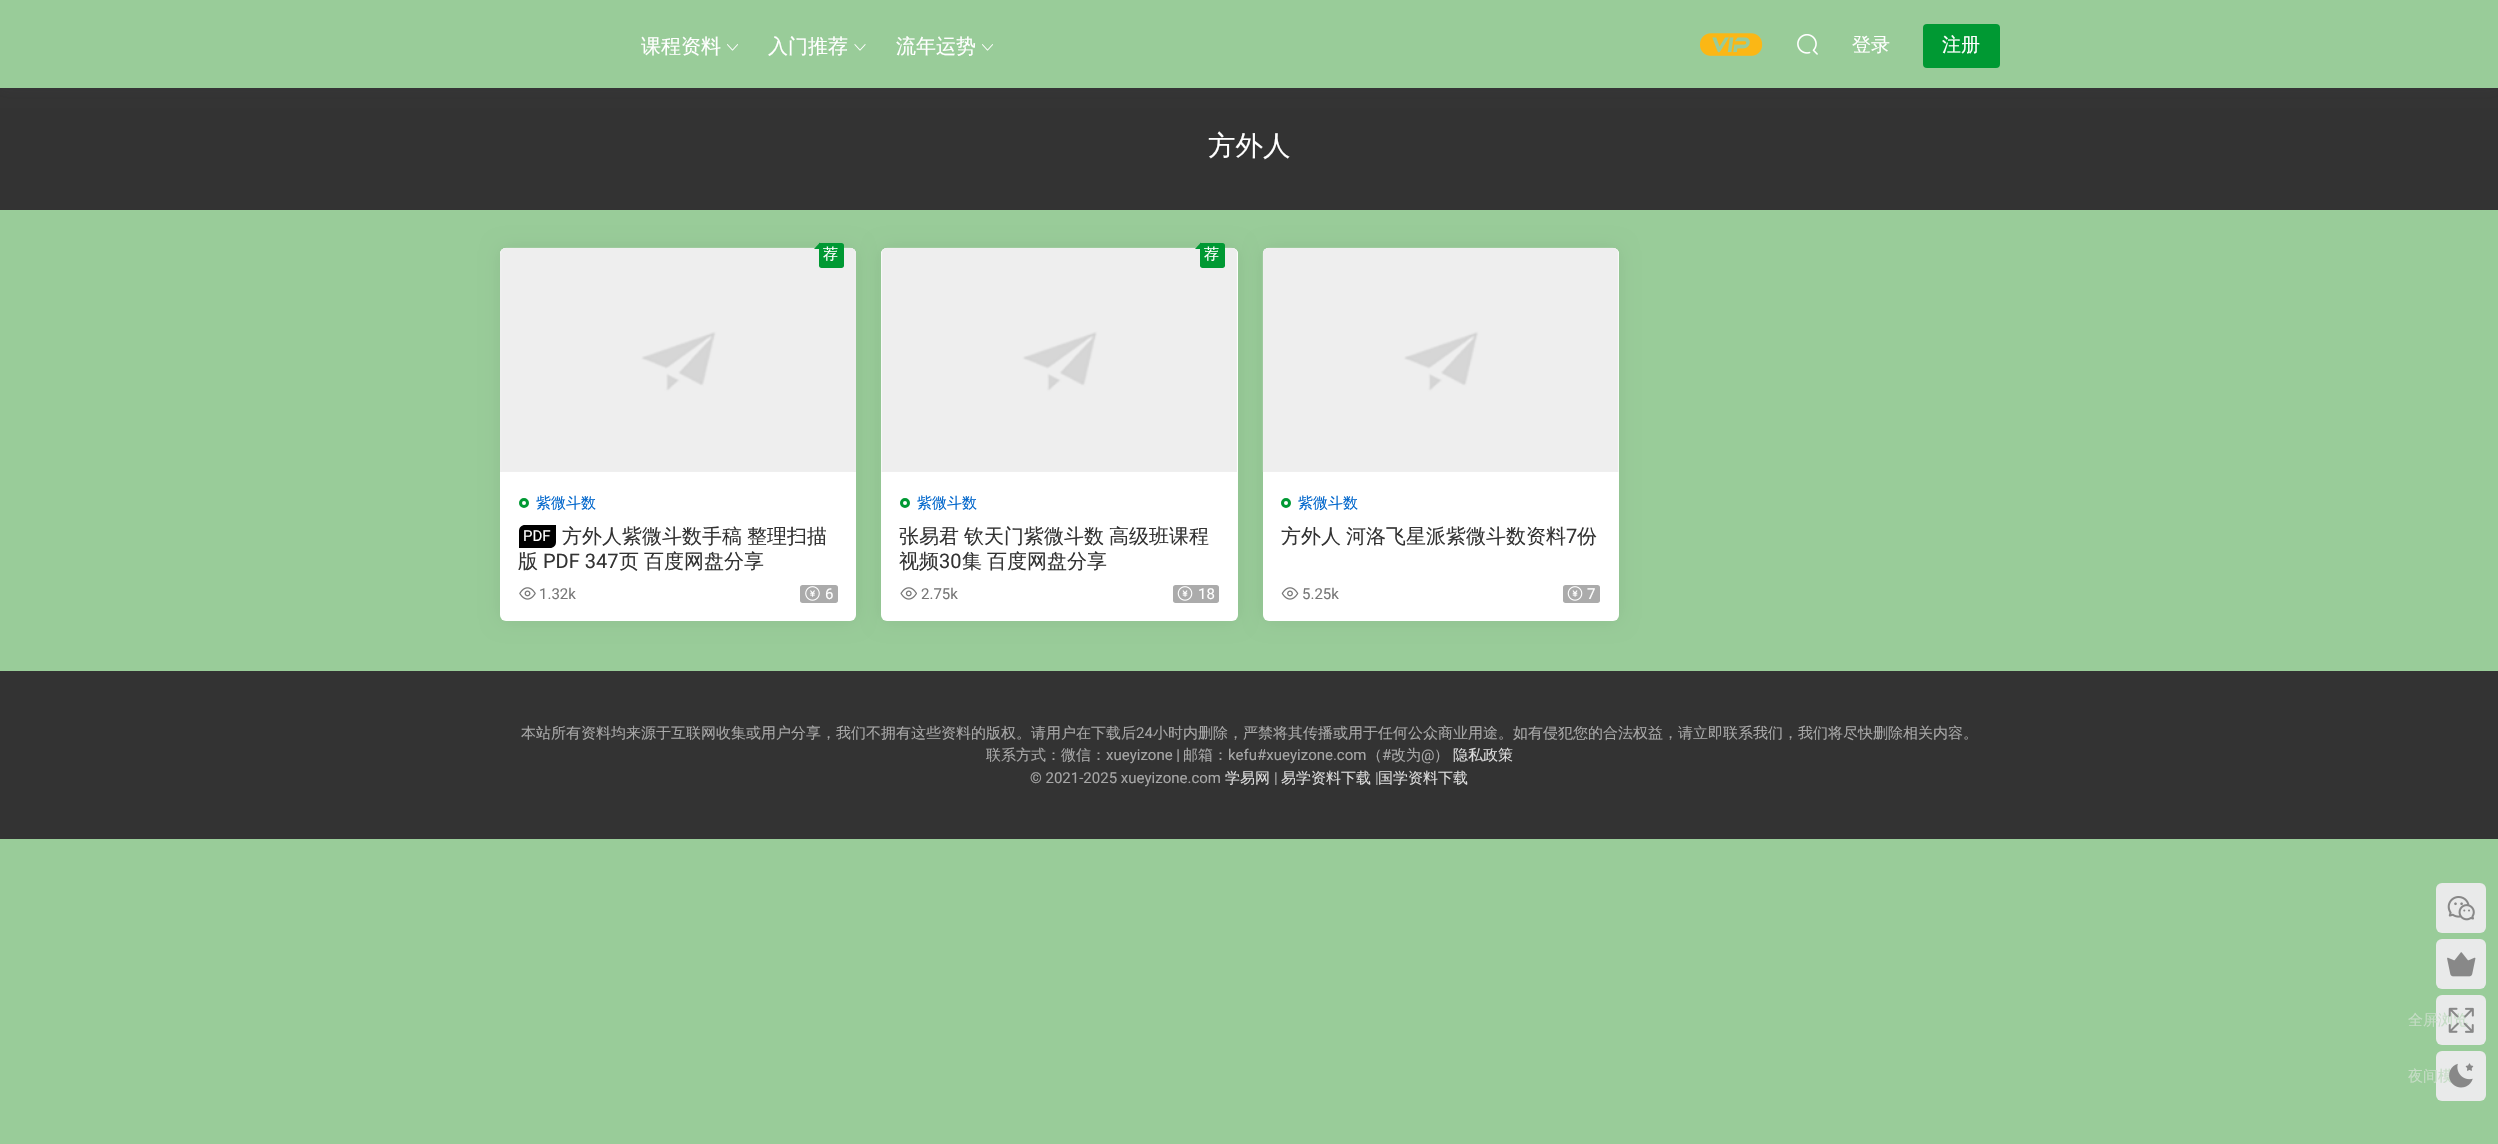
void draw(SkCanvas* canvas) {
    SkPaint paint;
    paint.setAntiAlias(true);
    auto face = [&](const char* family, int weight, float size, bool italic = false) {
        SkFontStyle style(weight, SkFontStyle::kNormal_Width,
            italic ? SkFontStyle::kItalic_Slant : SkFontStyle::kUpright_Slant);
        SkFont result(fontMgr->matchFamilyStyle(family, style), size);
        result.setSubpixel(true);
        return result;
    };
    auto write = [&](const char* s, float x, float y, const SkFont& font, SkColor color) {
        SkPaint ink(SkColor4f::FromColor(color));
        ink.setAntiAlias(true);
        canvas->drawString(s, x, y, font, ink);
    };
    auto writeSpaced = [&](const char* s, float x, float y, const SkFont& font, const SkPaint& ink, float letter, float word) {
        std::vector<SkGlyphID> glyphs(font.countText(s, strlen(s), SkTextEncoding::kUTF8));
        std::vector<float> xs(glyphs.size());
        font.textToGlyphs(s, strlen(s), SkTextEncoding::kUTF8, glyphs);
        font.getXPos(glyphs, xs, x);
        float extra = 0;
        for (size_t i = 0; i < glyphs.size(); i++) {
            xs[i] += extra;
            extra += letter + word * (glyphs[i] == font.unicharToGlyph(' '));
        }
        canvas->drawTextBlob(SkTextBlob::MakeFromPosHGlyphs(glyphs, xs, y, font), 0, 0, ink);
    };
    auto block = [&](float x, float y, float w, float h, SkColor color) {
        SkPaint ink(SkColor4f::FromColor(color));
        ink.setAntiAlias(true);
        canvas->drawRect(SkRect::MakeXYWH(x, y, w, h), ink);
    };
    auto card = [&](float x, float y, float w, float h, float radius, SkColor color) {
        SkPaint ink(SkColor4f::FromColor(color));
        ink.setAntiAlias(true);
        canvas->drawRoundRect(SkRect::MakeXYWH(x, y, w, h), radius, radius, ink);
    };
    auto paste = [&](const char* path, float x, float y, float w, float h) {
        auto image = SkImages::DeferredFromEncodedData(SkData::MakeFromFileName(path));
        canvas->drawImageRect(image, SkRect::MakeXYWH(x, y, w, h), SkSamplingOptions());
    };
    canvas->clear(SkColorSetRGB(153, 204, 153));
    block(0, 88, 2498, 122, SkColorSetRGB(51, 51, 51));
    paint.setColor(SkColorSetARGB(26, 78, 82, 84));
    paint.setMaskFilter(SkMaskFilter::MakeBlur(kNormal_SkBlurStyle, 6));
    canvas->drawRect(SkRect::MakeXYWH(0, 3, 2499, 87), paint);
    paint.setMaskFilter(nullptr);
    block(0, 0, 2498, 88, SkColorSetRGB(153, 204, 153));
    auto kFont1 = face("WenQuanYi Zen Hei", 500, 20);
    write("课程资料", 641, 53, kFont1, SK_ColorWHITE);
    paste("pic1.png", 727, 44, 11, 7);
    write("入门推荐", 768, 53, kFont1, SK_ColorWHITE);
    paste("pic2.png", 854, 44, 12, 7);
    write("流年运势", 896, 53, kFont1, SK_ColorWHITE);
    paste("pic1.png", 982, 44, 11, 7);
    paste("pic3.png", 1700, 33, 63, 23);
    paste("pic4.png", 1797, 34, 21, 21);
    auto kFont2 = face("WenQuanYi Zen Hei", 500, 19);
    write("登录", 1852, 51, kFont2, SK_ColorWHITE);
    card(1923, 24, 77, 44, 4, SkColorSetRGB(0, 153, 51));
    write("注册", 1942, 51, kFont2, SK_ColorWHITE);
    auto kFont3 = face("WenQuanYi Zen Hei", 500, 27.5f);
    write("方外人", 1208, 155, kFont3, SK_ColorWHITE);
    paint.setColor(SkColorSetARGB(18, 0, 0, 0));
    paint.setMaskFilter(SkMaskFilter::MakeBlur(kNormal_SkBlurStyle, 9.5f));
    canvas->drawRoundRect(SkRect::MakeXYWH(500, 248, 356, 373), 6, 6, paint);
    paint.setMaskFilter(nullptr);
    card(500, 248, 356, 373, 6, SK_ColorWHITE);
    paint.setColor(SK_ColorWHITE);
    canvas->drawPath(SkPathBuilder().moveTo(506, 248).lineTo(850, 248).cubicTo(853.5f, 248, 856, 250.5f, 856, 254).lineTo(856, 473).lineTo(500, 473).lineTo(500, 254).cubicTo(500, 250.5f, 502.5f, 248, 506, 248).close().detach(), paint);
    paste("pic5.png", 500, 247, 356, 225);
    paint.setColor(SkColorSetRGB(0, 153, 51));
    canvas->drawPath(SkPathBuilder().moveTo(819, 243).lineTo(841.5f, 243).cubicTo(843, 243, 844, 244, 844, 245.5f).lineTo(844, 265.5f).cubicTo(844, 267, 843, 268, 841.5f, 268).lineTo(821.5f, 268).cubicTo(820, 268, 819, 267, 819, 265.5f).close().detach(), paint);
    canvas->drawPath(SkPathBuilder().moveTo(820, 249).lineTo(814, 249).lineTo(820, 242.5f).close().detach(), paint);
    auto kFont4 = face("WenQuanYi Zen Hei", 500, 15);
    write("荐", 823, 259, kFont4, SK_ColorWHITE);
    paint.setStyle(SkPaint::kStroke_Style);
    paint.setStrokeWidth(3);
    canvas->drawCircle(524, 503, 3.5f, paint);
    write("紫微斗数", 536, 508, kFont4, SkColorSetRGB(0, 102, 204));
    paint.setStyle(SkPaint::kFill_Style);
    paint.setColor(SK_ColorBLACK);
    canvas->drawPath(SkPathBuilder().moveTo(525, 525).lineTo(556, 525).lineTo(556, 542).cubicTo(556, 545.5f, 553.5f, 548, 550, 548).lineTo(519, 548).lineTo(519, 531).cubicTo(519, 527.5f, 521.5f, 525, 525, 525).close().detach(), paint);
    auto kFont5 = face("Roboto", 400, 15);
    write("PDF", 523, 541, kFont5, SK_ColorWHITE);
    paint.setColor(SkColorSetRGB(51, 51, 51));
    writeSpaced("方外人紫微斗数手稿 整理扫描", 562, 543, kFont1, paint, 0, -1);
    write("版", 518, 568, kFont1, SkColorSetRGB(51, 51, 51));
    auto kFont6 = face("Roboto", 400, 20);
    write("PDF 347", 543, 568, kFont6, SkColorSetRGB(51, 51, 51));
    write("页", 619, 568, kFont1, SkColorSetRGB(51, 51, 51));
    write("百度网盘分享", 644, 568, kFont1, SkColorSetRGB(51, 51, 51));
    paste("pic6.png", 519, 587, 17, 13);
    write("1.32k", 539, 599, kFont5, SkColorSetRGB(119, 119, 119));
    paint.setColor(SkColorSetRGB(171, 171, 171));
    canvas->drawPath(SkPathBuilder().moveTo(802.5f, 585).lineTo(821, 585).lineTo(821, 603).lineTo(802.5f, 603).cubicTo(801, 603, 800, 602, 800, 600.5f).lineTo(800, 587.5f).cubicTo(800, 586, 801, 585, 802.5f, 585).close().detach(), paint);
    paste("pic7.png", 805, 586, 15, 15);
    canvas->drawPath(SkPathBuilder().moveTo(821, 585).lineTo(835.5f, 585).cubicTo(837, 585, 838, 586, 838, 587.5f).lineTo(838, 600.5f).cubicTo(838, 602, 837, 603, 835.5f, 603).lineTo(821, 603).close().detach(), paint);
    write("6", 825, 599, kFont5, SK_ColorWHITE);
    paint.setColor(SkColorSetARGB(18, 0, 0, 0));
    paint.setMaskFilter(SkMaskFilter::MakeBlur(kNormal_SkBlurStyle, 9.5f));
    canvas->drawRoundRect(SkRect::MakeXYWH(881, 248, 357, 373), 6, 6, paint);
    paint.setMaskFilter(nullptr);
    card(881, 248, 357, 373, 6, SK_ColorWHITE);
    paint.setColor(SK_ColorWHITE);
    canvas->drawPath(SkPathBuilder().moveTo(887, 248).lineTo(1232, 248).cubicTo(1235.5f, 248, 1238, 250.5f, 1238, 254).lineTo(1238, 473).lineTo(881, 473).lineTo(881, 254).cubicTo(881, 250.5f, 883.5f, 248, 887, 248).close().detach(), paint);
    paste("pic8.png", 881, 247, 356, 225);
    paint.setColor(SkColorSetRGB(0, 153, 51));
    canvas->drawPath(SkPathBuilder().moveTo(1200, 243).lineTo(1222.5f, 243).cubicTo(1224, 243, 1225, 244, 1225, 245.5f).lineTo(1225, 265.5f).cubicTo(1225, 267, 1224, 268, 1222.5f, 268).lineTo(1202.5f, 268).cubicTo(1201, 268, 1200, 267, 1200, 265.5f).close().detach(), paint);
    canvas->drawPath(SkPathBuilder().moveTo(1201, 249).lineTo(1195, 249).lineTo(1201, 242.5f).close().detach(), paint);
    write("荐", 1204, 259, kFont4, SK_ColorWHITE);
    paint.setStyle(SkPaint::kStroke_Style);
    canvas->drawCircle(905, 503, 3.5f, paint);
    write("紫微斗数", 917, 508, kFont4, SkColorSetRGB(0, 102, 204));
    paint.setStyle(SkPaint::kFill_Style);
    paint.setColor(SkColorSetRGB(51, 51, 51));
    writeSpaced("张易君 钦天门紫微斗数 高级班课程", 899, 543, kFont1, paint, 0, -1);
    write("视频", 899, 568, kFont1, SkColorSetRGB(51, 51, 51));
    write("30", 939, 568, kFont6, SkColorSetRGB(51, 51, 51));
    writeSpaced("集 百度网盘分享", 962, 568, kFont1, paint, 0, -1);
    paste("pic9.png", 900, 587, 17, 13);
    write("2.75k", 921, 599, kFont5, SkColorSetRGB(119, 119, 119));
    paint.setColor(SkColorSetRGB(171, 171, 171));
    canvas->drawPath(SkPathBuilder().moveTo(1175.5f, 585).lineTo(1194, 585).lineTo(1194, 603).lineTo(1175.5f, 603).cubicTo(1174, 603, 1173, 602, 1173, 600.5f).lineTo(1173, 587.5f).cubicTo(1173, 586, 1174, 585, 1175.5f, 585).close().detach(), paint);
    paste("pic10.png", 1177, 586, 16, 15);
    canvas->drawPath(SkPathBuilder().moveTo(1194, 585).lineTo(1216.5f, 585).cubicTo(1218, 585, 1219, 586, 1219, 587.5f).lineTo(1219, 600.5f).cubicTo(1219, 602, 1218, 603, 1216.5f, 603).lineTo(1194, 603).close().detach(), paint);
    write("18", 1198, 599, kFont5, SK_ColorWHITE);
    paint.setColor(SkColorSetARGB(18, 0, 0, 0));
    paint.setMaskFilter(SkMaskFilter::MakeBlur(kNormal_SkBlurStyle, 9.5f));
    canvas->drawRoundRect(SkRect::MakeXYWH(1263, 248, 356, 373), 6, 6, paint);
    paint.setMaskFilter(nullptr);
    card(1263, 248, 356, 373, 6, SK_ColorWHITE);
    paint.setColor(SK_ColorWHITE);
    canvas->drawPath(SkPathBuilder().moveTo(1269, 248).lineTo(1613, 248).cubicTo(1616.5f, 248, 1619, 250.5f, 1619, 254).lineTo(1619, 473).lineTo(1263, 473).lineTo(1263, 254).cubicTo(1263, 250.5f, 1265.5f, 248, 1269, 248).close().detach(), paint);
    paste("pic11.png", 1262, 247, 357, 225);
    paint.setStyle(SkPaint::kStroke_Style);
    paint.setColor(SkColorSetRGB(0, 153, 51));
    canvas->drawCircle(1286, 503, 3.5f, paint);
    write("紫微斗数", 1298, 508, kFont4, SkColorSetRGB(0, 102, 204));
    paint.setStyle(SkPaint::kFill_Style);
    paint.setColor(SkColorSetRGB(51, 51, 51));
    writeSpaced("方外人 河洛飞星派紫微斗数资料", 1281, 543, kFont1, paint, 0, -1);
    write("7", 1566, 543, kFont6, SkColorSetRGB(51, 51, 51));
    write("份", 1577, 543, kFont1, SkColorSetRGB(51, 51, 51));
    paste("pic12.png", 1281, 587, 18, 13);
    write("5.25k", 1302, 599, kFont5, SkColorSetRGB(119, 119, 119));
    paint.setColor(SkColorSetRGB(171, 171, 171));
    canvas->drawPath(SkPathBuilder().moveTo(1565.5f, 585).lineTo(1584, 585).lineTo(1584, 603).lineTo(1565.5f, 603).cubicTo(1564, 603, 1563, 602, 1563, 600.5f).lineTo(1563, 587.5f).cubicTo(1563, 586, 1564, 585, 1565.5f, 585).close().detach(), paint);
    paste("pic10.png", 1567, 586, 16, 15);
    canvas->drawPath(SkPathBuilder().moveTo(1584, 585).lineTo(1597.5f, 585).cubicTo(1599, 585, 1600, 586, 1600, 587.5f).lineTo(1600, 600.5f).cubicTo(1600, 602, 1599, 603, 1597.5f, 603).lineTo(1584, 603).close().detach(), paint);
    write("7", 1587, 599, kFont5, SK_ColorWHITE);
    block(0, 671, 2498, 168, SkColorSetRGB(51, 51, 51));
    write("本站所有资料均来源于互联网收集或用户分享，我们不拥有这些资料的版权。请用户在下载后", 521, 738, kFont4, SkColorSetRGB(167, 167, 167));
    write("24", 1136, 738, kFont5, SkColorSetRGB(167, 167, 167));
    write("小时内删除，严禁将其传播或用于任何公众商业用途。如有侵犯您的合法权益，请立即联系我们，我们将尽快删除相关内容。", 1153, 738, kFont4, SkColorSetRGB(167, 167, 167));
    write("联系方式：微信：", 986, 760, kFont4, SkColorSetRGB(167, 167, 167));
    write("xueyizone |", 1106, 760, kFont5, SkColorSetRGB(167, 167, 167));
    write("邮箱：", 1183, 760, kFont4, SkColorSetRGB(167, 167, 167));
    write("kefu#xueyizone.com", 1228, 760, kFont5, SkColorSetRGB(167, 167, 167));
    write("（", 1367, 760, kFont4, SkColorSetRGB(167, 167, 167));
    write("#", 1382, 760, kFont5, SkColorSetRGB(167, 167, 167));
    write("改为", 1391, 760, kFont4, SkColorSetRGB(167, 167, 167));
    write("@", 1421, 760, kFont5, SkColorSetRGB(167, 167, 167));
    write("）", 1434, 760, kFont4, SkColorSetRGB(167, 167, 167));
    write("隐私政策", 1453, 760, kFont4, SkColorSetRGB(220, 220, 220));
    write("© 2021-2025 xueyizone.com", 1030, 783, kFont5, SkColorSetRGB(167, 167, 167));
    write("学易网", 1225, 783, kFont4, SkColorSetRGB(220, 220, 220));
    write("|", 1274, 783, kFont5, SkColorSetRGB(167, 167, 167));
    write("易学资料下载", 1281, 783, kFont4, SkColorSetRGB(220, 220, 220));
    write("|", 1375, 783, kFont5, SkColorSetRGB(167, 167, 167));
    write("国学资料下载", 1378, 783, kFont4, SkColorSetRGB(220, 220, 220));
    card(2436, 883, 50, 50, 6, SkColorSetRGB(233, 234, 234));
    paste("pic13.png", 2447, 896, 28, 25);
    card(2436, 939, 50, 50, 6, SkColorSetRGB(233, 234, 234));
    paste("pic14.png", 2447, 952, 29, 25);
    card(2436, 995, 50, 50, 6, SkColorSetRGB(233, 234, 234));
    write("全屏浏览", 2408, 1025, kFont4, SkColorSetRGB(197, 220, 197));
    paste("pic15.png", 2448, 1007, 26, 26);
    card(2436, 1051, 50, 50, 6, SkColorSetRGB(233, 234, 234));
    write("夜间模", 2408, 1081, kFont4, SkColorSetRGB(197, 220, 197));
    paste("pic16.png", 2449, 1063, 25, 25);
}
